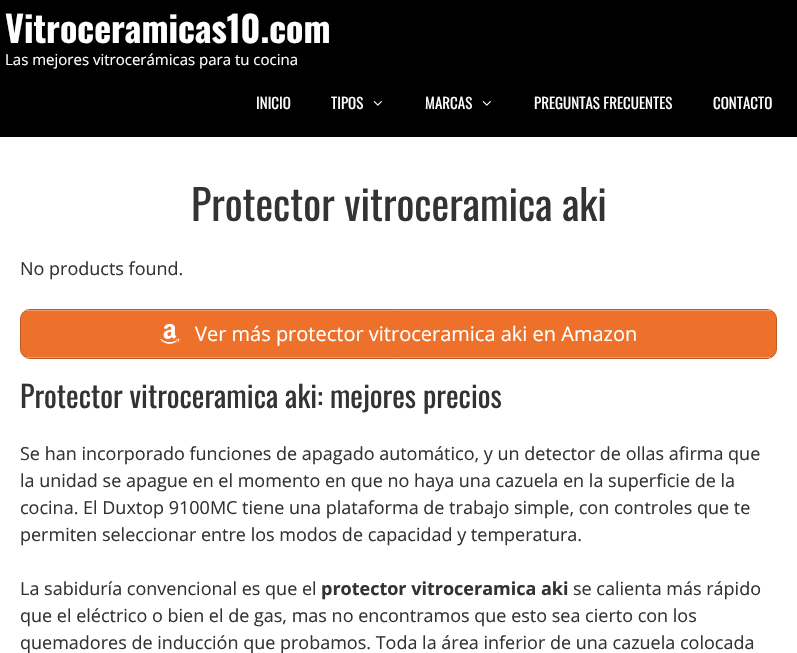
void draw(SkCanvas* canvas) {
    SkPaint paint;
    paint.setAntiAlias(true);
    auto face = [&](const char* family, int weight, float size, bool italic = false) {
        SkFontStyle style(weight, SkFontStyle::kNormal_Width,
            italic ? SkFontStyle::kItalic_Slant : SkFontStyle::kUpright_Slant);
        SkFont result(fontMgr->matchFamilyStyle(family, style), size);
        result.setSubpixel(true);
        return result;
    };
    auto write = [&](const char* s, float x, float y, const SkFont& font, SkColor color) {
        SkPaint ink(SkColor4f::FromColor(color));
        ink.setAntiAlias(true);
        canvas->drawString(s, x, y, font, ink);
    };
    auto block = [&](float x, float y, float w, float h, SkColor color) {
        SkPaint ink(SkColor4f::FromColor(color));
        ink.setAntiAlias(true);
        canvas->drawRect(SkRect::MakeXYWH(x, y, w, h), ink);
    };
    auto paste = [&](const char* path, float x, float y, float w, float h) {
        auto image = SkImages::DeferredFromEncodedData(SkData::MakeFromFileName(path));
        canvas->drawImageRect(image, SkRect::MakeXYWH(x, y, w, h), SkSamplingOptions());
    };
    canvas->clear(SK_ColorWHITE);
    block(0, 0, 797, 137, SK_ColorBLACK);
    auto kFont1 = face("Oswald", 700, 36);
    write("Vitroceramicas10.com", 5, 43, kFont1, SK_ColorWHITE);
    auto kFont2 = face("Open Sans", 400, 15);
    write("Las mejores vitrocerámicas para tu cocina", 5, 65, kFont2, SK_ColorWHITE);
    auto kFont3 = face("Oswald", 400, 15);
    write("INICIO", 256, 109, kFont3, SK_ColorWHITE);
    write("TIPOS", 331, 109, kFont3, SK_ColorWHITE);
    paste("pic1.png", 373, 101, 9, 5);
    write("MARCAS", 425, 109, kFont3, SK_ColorWHITE);
    paste("pic1.png", 482, 101, 9, 5);
    write("PREGUNTAS FRECUENTES", 534, 109, kFont3, SK_ColorWHITE);
    write("CONTACTO", 713, 109, kFont3, SK_ColorWHITE);
    auto kFont4 = face("Oswald", 400, 42);
    write("Protector vitroceramica aki", 191, 221, kFont4, SkColorSetRGB(51, 51, 51));
    auto kFont5 = face("Open Sans", 400, 18);
    write("No products found.", 20, 275, kFont5, SkColorSetRGB(51, 51, 51));
    paint.setColor(SkColorSetRGB(237, 112, 43));
    canvas->drawRoundRect(SkRect::MakeXYWH(20.5f, 309.5f, 756, 49), 9.5f, 9.5f, paint);
    paint.setStyle(SkPaint::kStroke_Style);
    paint.setStrokeWidth(1);
    paint.setColor(SkColorSetRGB(190, 90, 35));
    canvas->drawRoundRect(SkRect::MakeXYWH(20.5f, 309.5f, 756, 49), 9.5f, 9.5f, paint);
    block(26, 310, 745, 1, SkColorSetRGB(243, 155, 107));
    block(26, 357, 745, 1, SkColorSetRGB(243, 155, 107));
    paste("pic2.png", 160, 323, 20, 21);
    auto kFont6 = face("Open Sans", 400, 20);
    write("Ver más protector vitroceramica aki en Amazon", 195, 341, kFont6, SK_ColorWHITE);
    auto kFont7 = face("Oswald", 400, 30);
    write("Protector vitroceramica aki: mejores precios", 20, 408, kFont7, SkColorSetRGB(51, 51, 51));
    write("Se han incorporado funciones de apagado automático, y un detector de ollas afirma que", 20, 460, kFont5, SkColorSetRGB(51, 51, 51));
    write("la unidad se apague en el momento en que no haya una cazuela en la superficie de la", 20, 487, kFont5, SkColorSetRGB(51, 51, 51));
    write("cocina. El Duxtop 9100MC tiene una plataforma de trabajo simple, con controles que te", 20, 514, kFont5, SkColorSetRGB(51, 51, 51));
    write("permiten seleccionar entre los modos de capacidad y temperatura.", 20, 541, kFont5, SkColorSetRGB(51, 51, 51));
    write("La sabiduría convencional es que el", 20, 595, kFont5, SkColorSetRGB(51, 51, 51));
    auto kFont8 = face("Open Sans", 700, 18);
    write("protector vitroceramica aki", 321, 595, kFont8, SkColorSetRGB(51, 51, 51));
    write("se calienta más rápido", 573, 595, kFont5, SkColorSetRGB(51, 51, 51));
    write("que el eléctrico o bien el de gas, mas no encontramos que esto sea cierto con los", 20, 622, kFont5, SkColorSetRGB(51, 51, 51));
    write("quemadores de inducción que probamos. Toda la área inferior de una cazuela colocada", 20, 649, kFont5, SkColorSetRGB(51, 51, 51));
}
